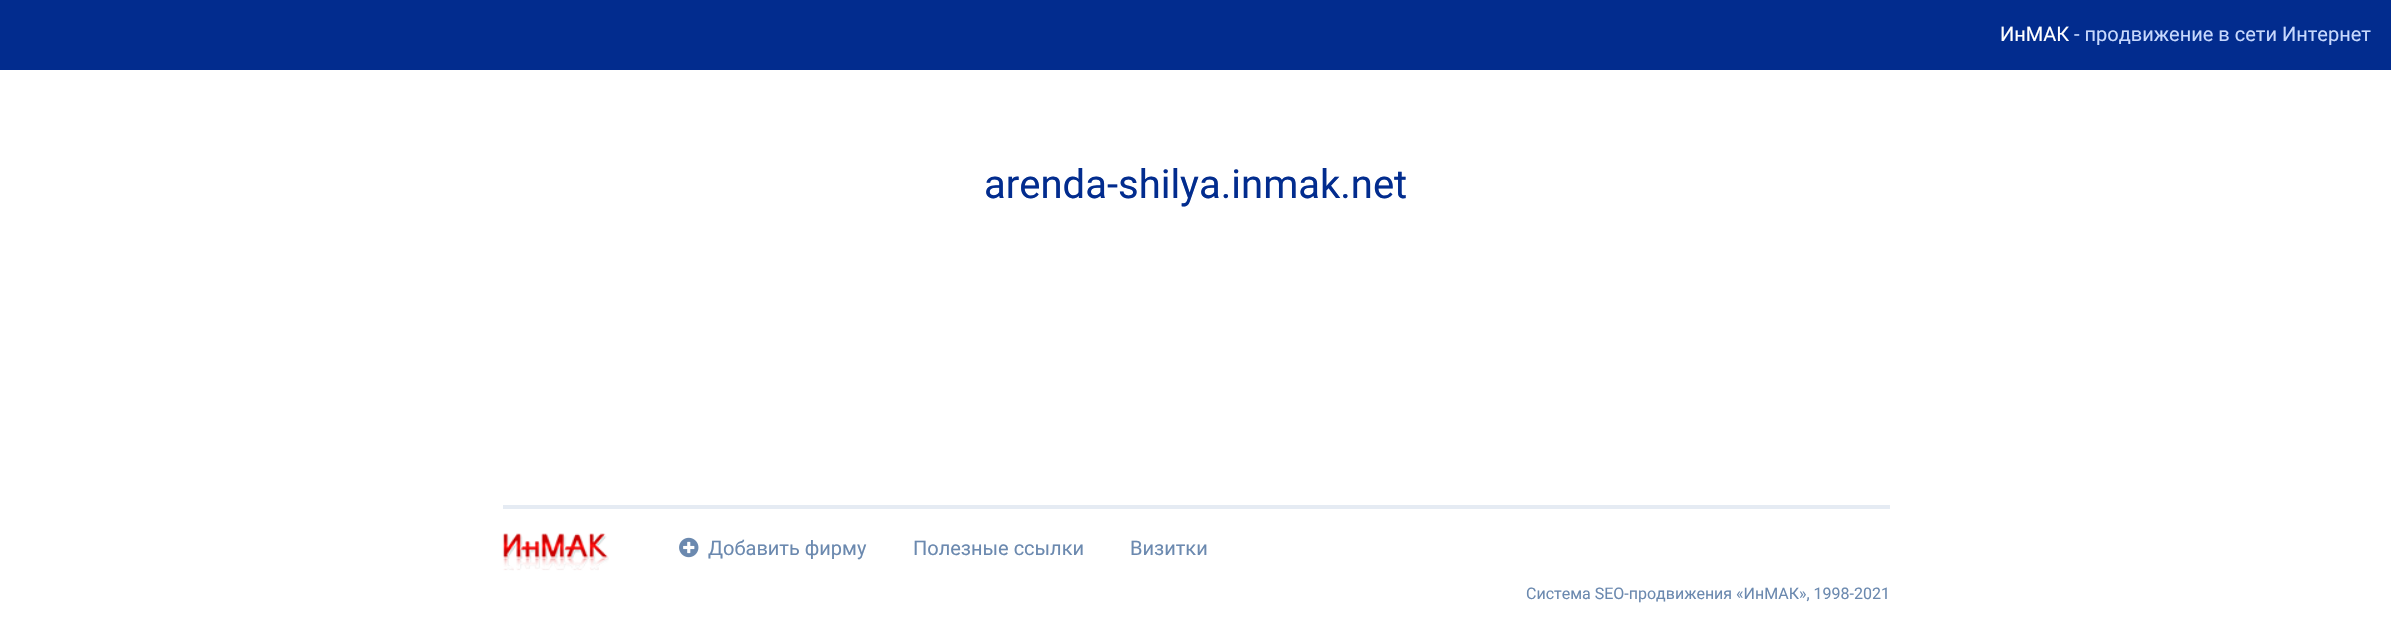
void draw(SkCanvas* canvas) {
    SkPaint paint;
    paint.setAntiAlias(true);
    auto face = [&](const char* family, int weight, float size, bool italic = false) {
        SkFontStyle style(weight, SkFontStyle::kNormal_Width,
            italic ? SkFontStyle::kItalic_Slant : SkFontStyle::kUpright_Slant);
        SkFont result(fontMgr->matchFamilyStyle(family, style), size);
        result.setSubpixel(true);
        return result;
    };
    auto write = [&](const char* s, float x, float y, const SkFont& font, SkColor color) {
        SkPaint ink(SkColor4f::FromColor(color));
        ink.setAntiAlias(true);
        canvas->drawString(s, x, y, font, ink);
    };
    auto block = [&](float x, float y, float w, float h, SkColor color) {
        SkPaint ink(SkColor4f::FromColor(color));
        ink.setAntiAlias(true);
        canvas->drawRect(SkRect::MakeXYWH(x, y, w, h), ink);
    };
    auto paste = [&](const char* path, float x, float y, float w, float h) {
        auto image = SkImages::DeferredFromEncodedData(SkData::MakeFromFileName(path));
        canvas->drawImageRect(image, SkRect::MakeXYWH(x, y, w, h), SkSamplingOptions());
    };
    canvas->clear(SK_ColorWHITE);
    block(0, 0, 2391, 70, SkColorSetRGB(2, 44, 142));
    auto kFont1 = face("Roboto", 400, 20);
    write("ИнМАК", 2000, 41, kFont1, SK_ColorWHITE);
    write("- продвижение в сети Интернет", 2074, 41, kFont1, SkColorSetRGB(199, 216, 253));
    auto kFont2 = face("Roboto", 400, 40);
    write("arenda-shilya.inmak.net", 984, 198, kFont2, SkColorSetRGB(2, 44, 142));
    block(503, 505, 1387, 4, SkColorSetRGB(229, 235, 243));
    paste("pic1.png", 502, 533, 107, 38);
    paste("pic2.png", 679, 537, 20, 21);
    write("Добавить фирму", 708, 555, kFont1, SkColorSetRGB(107, 137, 175));
    write("Полезные ссылки", 913, 555, kFont1, SkColorSetRGB(107, 137, 175));
    write("Визитки", 1130, 555, kFont1, SkColorSetRGB(107, 137, 175));
    auto kFont3 = face("Roboto", 400, 16);
    write("Система SEO-продвижения «ИнМАК», 1998-2021", 1526, 599, kFont3, SkColorSetRGB(107, 137, 175));
}
